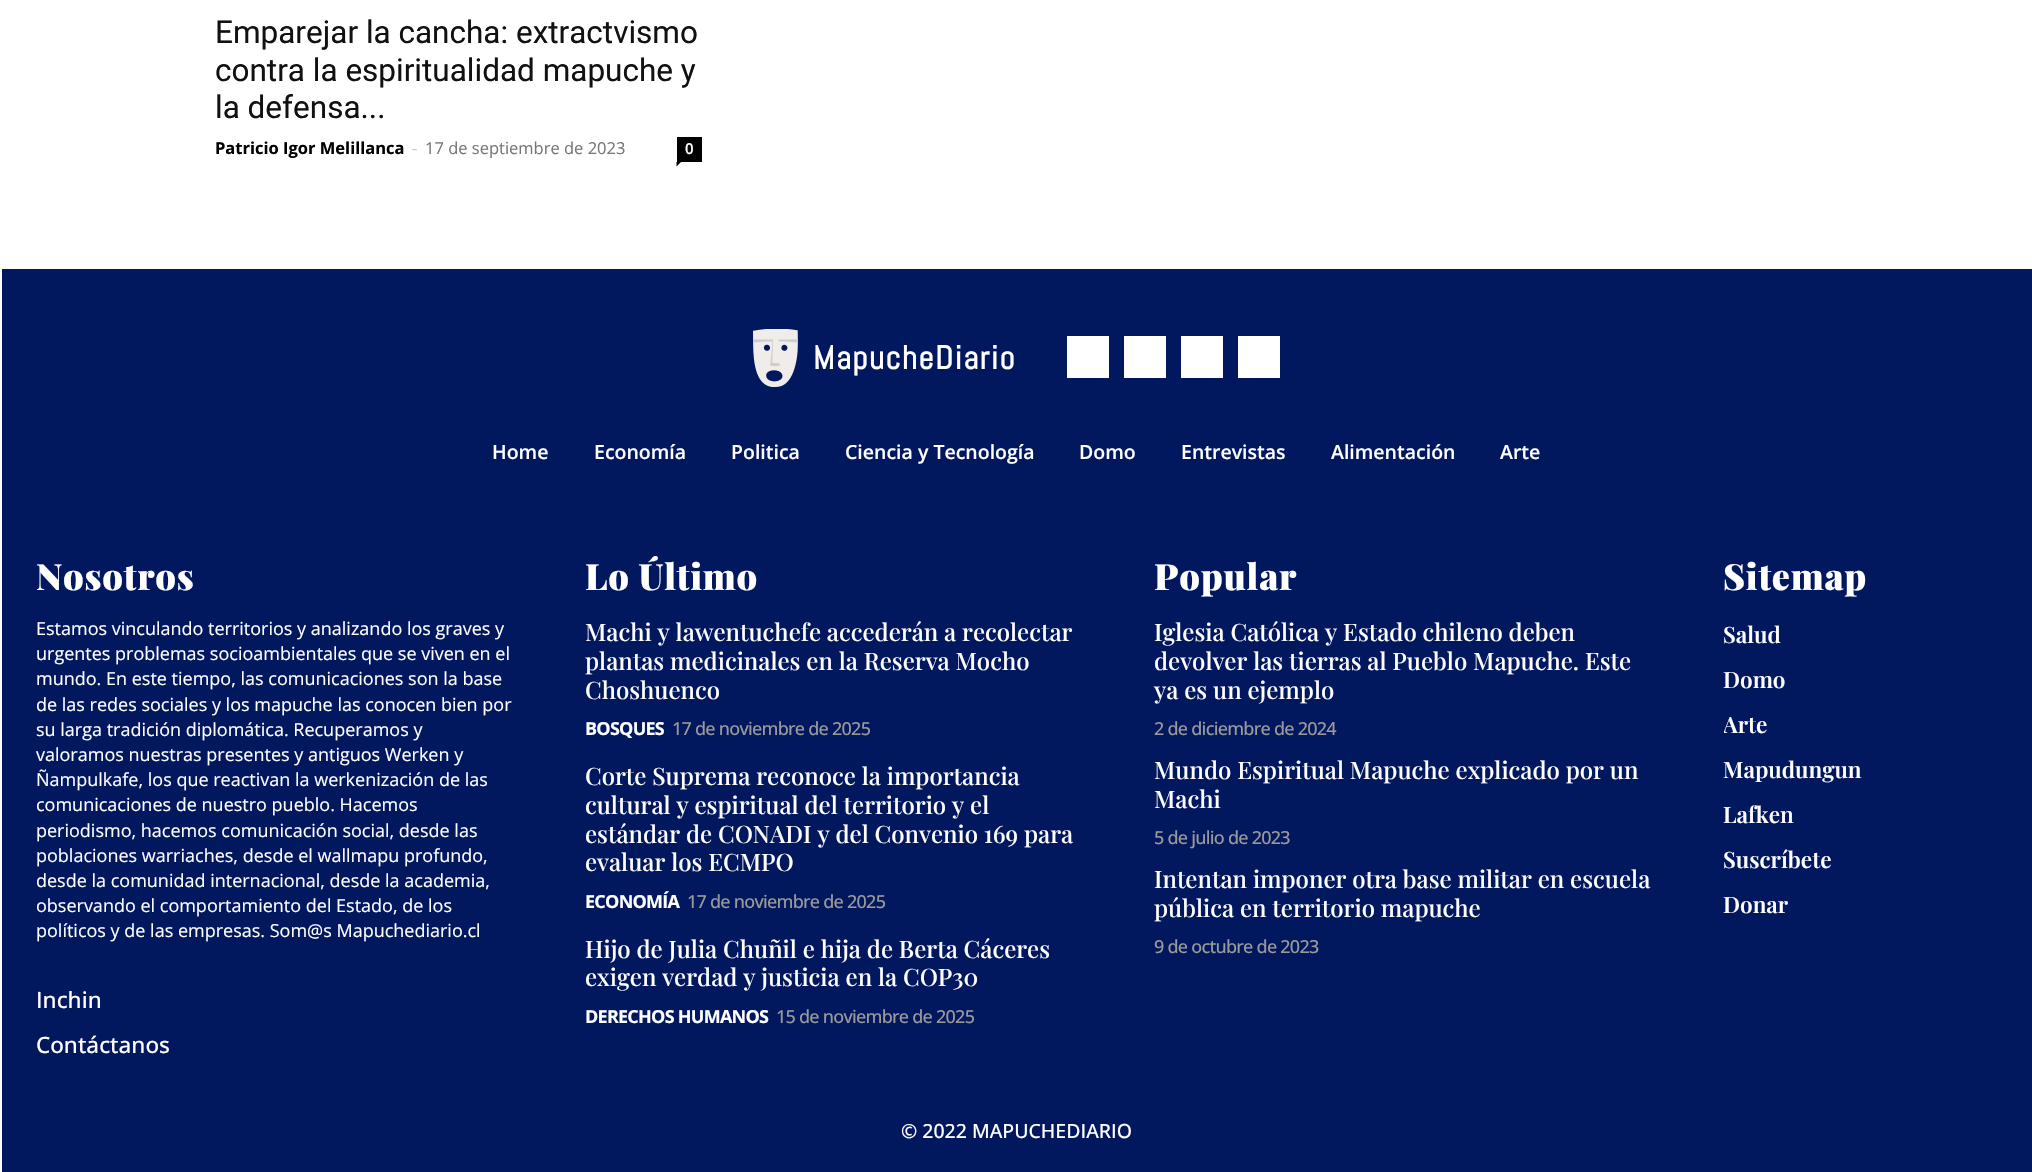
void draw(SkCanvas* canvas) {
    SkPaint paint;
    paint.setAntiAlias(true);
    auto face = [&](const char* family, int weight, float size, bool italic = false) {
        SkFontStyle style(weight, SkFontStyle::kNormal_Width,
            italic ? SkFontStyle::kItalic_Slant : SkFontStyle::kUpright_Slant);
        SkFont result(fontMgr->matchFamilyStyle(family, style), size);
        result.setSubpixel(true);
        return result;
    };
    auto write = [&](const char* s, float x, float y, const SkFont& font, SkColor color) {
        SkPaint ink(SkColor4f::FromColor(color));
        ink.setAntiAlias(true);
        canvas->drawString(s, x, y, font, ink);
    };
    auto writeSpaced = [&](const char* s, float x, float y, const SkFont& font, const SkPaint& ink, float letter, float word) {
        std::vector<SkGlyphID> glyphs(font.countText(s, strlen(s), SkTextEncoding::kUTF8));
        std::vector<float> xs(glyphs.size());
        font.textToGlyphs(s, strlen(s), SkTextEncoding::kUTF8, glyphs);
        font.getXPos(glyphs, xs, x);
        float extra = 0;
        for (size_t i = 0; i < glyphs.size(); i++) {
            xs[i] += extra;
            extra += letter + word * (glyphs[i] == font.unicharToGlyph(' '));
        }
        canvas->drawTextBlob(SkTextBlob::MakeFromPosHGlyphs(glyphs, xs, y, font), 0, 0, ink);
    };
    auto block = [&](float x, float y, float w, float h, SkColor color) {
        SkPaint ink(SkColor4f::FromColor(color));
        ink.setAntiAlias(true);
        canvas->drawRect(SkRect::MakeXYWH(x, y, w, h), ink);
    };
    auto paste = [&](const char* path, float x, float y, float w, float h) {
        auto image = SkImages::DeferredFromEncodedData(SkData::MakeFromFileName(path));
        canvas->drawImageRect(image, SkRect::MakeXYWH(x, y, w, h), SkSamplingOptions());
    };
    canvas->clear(SK_ColorWHITE);
    auto kFont1 = face("Roboto", 400, 31.5f);
    write("Emparejar la cancha: extractvismo", 215, 43, kFont1, SkColorSetRGB(17, 17, 17));
    write("contra la espiritualidad mapuche y", 215, 81, kFont1, SkColorSetRGB(17, 17, 17));
    write("la defensa...", 215, 118, kFont1, SkColorSetRGB(17, 17, 17));
    auto kFont2 = face("Open Sans", 700, 16.5f);
    write("Patricio Igor Melillanca", 215, 154, kFont2, SK_ColorBLACK);
    auto kFont3 = face("Open Sans", 400, 16.5f);
    write("-", 412, 154, kFont3, SkColorSetRGB(204, 204, 204));
    write("17 de septiembre de 2023", 425, 154, kFont3, SkColorSetRGB(118, 118, 118));
    block(677, 137, 25, 25, SK_ColorBLACK);
    auto kFont4 = face("Open Sans", 600, 15);
    write("0", 685, 154, kFont4, SK_ColorWHITE);
    paint.setColor(SK_ColorBLACK);
    canvas->drawPath(SkPathBuilder().moveTo(676.5f, 162).lineTo(681, 162).lineTo(676.5f, 166.5f).close().detach(), paint);
    block(2, 269, 2030, 903, SkColorSetRGB(1, 23, 94));
    paste("pic1.png", 753, 329, 45, 58);
    auto kFont5 = face("Abel", 700, 33);
    paint.setColor(SK_ColorWHITE);
    writeSpaced("MapucheDiario", 813, 369, kFont5, paint, 1.5f, 0);
    block(1067, 336, 42, 42, SK_ColorWHITE);
    block(1124, 336, 42, 42, SK_ColorWHITE);
    block(1181, 336, 42, 42, SK_ColorWHITE);
    block(1238, 336, 42, 42, SK_ColorWHITE);
    auto kFont6 = face("Open Sans", 600, 19.5f);
    write("Home", 492, 459, kFont6, SK_ColorWHITE);
    write("Economía", 594, 459, kFont6, SK_ColorWHITE);
    write("Politica", 731, 459, kFont6, SK_ColorWHITE);
    write("Ciencia y Tecnología", 845, 459, kFont6, SK_ColorWHITE);
    write("Domo", 1079, 459, kFont6, SK_ColorWHITE);
    write("Entrevistas", 1181, 459, kFont6, SK_ColorWHITE);
    write("Alimentación", 1331, 459, kFont6, SK_ColorWHITE);
    write("Arte", 1500, 459, kFont6, SK_ColorWHITE);
    auto kFont7 = face("Playfair Display", 900, 36);
    writeSpaced("Nosotros", 36, 590, kFont7, paint, 0.75f, 0);
    auto kFont8 = face("Open Sans", 400, 18);
    write("Estamos vinculando territorios y analizando los graves y", 36, 635, kFont8, SK_ColorWHITE);
    write("urgentes problemas socioambientales que se viven en el", 36, 660, kFont8, SK_ColorWHITE);
    write("mundo. En este tiempo, las comunicaciones son la base", 36, 685, kFont8, SK_ColorWHITE);
    write("de las redes sociales y los mapuche las conocen bien por", 36, 711, kFont8, SK_ColorWHITE);
    write("su larga tradición diplomática. Recuperamos y", 36, 736, kFont8, SK_ColorWHITE);
    write("valoramos nuestras presentes y antiguos Werken y", 36, 761, kFont8, SK_ColorWHITE);
    write("Ñampulkafe, los que reactivan la werkenización de las", 36, 786, kFont8, SK_ColorWHITE);
    write("comunicaciones de nuestro pueblo. Hacemos", 36, 811, kFont8, SK_ColorWHITE);
    write("periodismo, hacemos comunicación social, desde las", 36, 837, kFont8, SK_ColorWHITE);
    write("poblaciones warriaches, desde el wallmapu profundo,", 36, 862, kFont8, SK_ColorWHITE);
    write("desde la comunidad internacional, desde la academia,", 36, 887, kFont8, SK_ColorWHITE);
    write("observando el comportamiento del Estado, de los", 36, 912, kFont8, SK_ColorWHITE);
    write("políticos y de las empresas. Som@s Mapuchediario.cl", 36, 937, kFont8, SK_ColorWHITE);
    auto kFont9 = face("Open Sans", 500, 22.5f);
    write("Inchin", 36, 1008, kFont9, SK_ColorWHITE);
    write("Contáctanos", 36, 1053, kFont9, SK_ColorWHITE);
    writeSpaced("Lo Último", 585, 590, kFont7, paint, 0.75f, 0);
    auto kFont10 = face("Playfair Display", 500, 24);
    write("Machi y lawentuchefe accederán a recolectar", 585, 641, kFont10, SK_ColorWHITE);
    write("plantas medicinales en la Reserva Mocho", 585, 670, kFont10, SK_ColorWHITE);
    write("Choshuenco", 585, 699, kFont10, SK_ColorWHITE);
    auto kFont11 = face("Open Sans", 700, 18);
    writeSpaced("BOSQUES", 585, 735, kFont11, paint, -0.75f, 0);
    auto kFont12 = face("Open Sans", 500, 18);
    paint.setColor(SkColorSetRGB(153, 153, 153));
    writeSpaced("17 de noviembre de 2025", 672, 735, kFont12, paint, -0.75f, 0);
    write("Corte Suprema reconoce la importancia", 585, 785, kFont10, SK_ColorWHITE);
    write("cultural y espiritual del territorio y el", 585, 814, kFont10, SK_ColorWHITE);
    write("estándar de CONADI y del Convenio 169 para", 585, 843, kFont10, SK_ColorWHITE);
    write("evaluar los ECMPO", 585, 871, kFont10, SK_ColorWHITE);
    paint.setColor(SK_ColorWHITE);
    writeSpaced("ECONOMÍA", 585, 908, kFont11, paint, -0.75f, 0);
    paint.setColor(SkColorSetRGB(153, 153, 153));
    writeSpaced("17 de noviembre de 2025", 687, 908, kFont12, paint, -0.75f, 0);
    write("Hijo de Julia Chuñil e hija de Berta Cáceres", 585, 958, kFont10, SK_ColorWHITE);
    write("exigen verdad y justicia en la COP30", 585, 986, kFont10, SK_ColorWHITE);
    paint.setColor(SK_ColorWHITE);
    writeSpaced("DERECHOS HUMANOS", 585, 1023, kFont11, paint, -0.75f, 0);
    paint.setColor(SkColorSetRGB(153, 153, 153));
    writeSpaced("15 de noviembre de 2025", 776, 1023, kFont12, paint, -0.75f, 0);
    paint.setColor(SK_ColorWHITE);
    writeSpaced("Popular", 1154, 590, kFont7, paint, 0.75f, 0);
    write("Iglesia Católica y Estado chileno deben", 1154, 641, kFont10, SK_ColorWHITE);
    write("devolver las tierras al Pueblo Mapuche. Este", 1154, 670, kFont10, SK_ColorWHITE);
    write("ya es un ejemplo", 1154, 699, kFont10, SK_ColorWHITE);
    paint.setColor(SkColorSetRGB(153, 153, 153));
    writeSpaced("2 de diciembre de 2024", 1154, 735, kFont12, paint, -0.75f, 0);
    write("Mundo Espiritual Mapuche explicado por un", 1154, 779, kFont10, SK_ColorWHITE);
    write("Machi", 1154, 808, kFont10, SK_ColorWHITE);
    writeSpaced("5 de julio de 2023", 1154, 844, kFont12, paint, -0.75f, 0);
    write("Intentan imponer otra base militar en escuela", 1154, 888, kFont10, SK_ColorWHITE);
    write("pública en territorio mapuche", 1154, 917, kFont10, SK_ColorWHITE);
    writeSpaced("9 de octubre de 2023", 1154, 953, kFont12, paint, -0.75f, 0);
    paint.setColor(SK_ColorWHITE);
    writeSpaced("Sitemap", 1723, 590, kFont7, paint, 0.75f, 0);
    auto kFont13 = face("Playfair Display", 600, 22.5f);
    write("Salud", 1723, 643, kFont13, SK_ColorWHITE);
    write("Domo", 1723, 688, kFont13, SK_ColorWHITE);
    canvas->save();
    canvas->clipRect(SkRect::MakeXYWH(1724, 617, 273, 303));
    write("Arte", 1723, 733, kFont13, SK_ColorWHITE);
    canvas->restore();
    write("Mapudungun", 1723, 778, kFont13, SK_ColorWHITE);
    write("Lafken", 1723, 823, kFont13, SK_ColorWHITE);
    write("Suscríbete", 1723, 868, kFont13, SK_ColorWHITE);
    write("Donar", 1723, 913, kFont13, SK_ColorWHITE);
    auto kFont14 = face("Open Sans", 500, 19.5f);
    write("© 2022 MAPUCHEDIARIO", 901, 1138, kFont14, SK_ColorWHITE);
}
